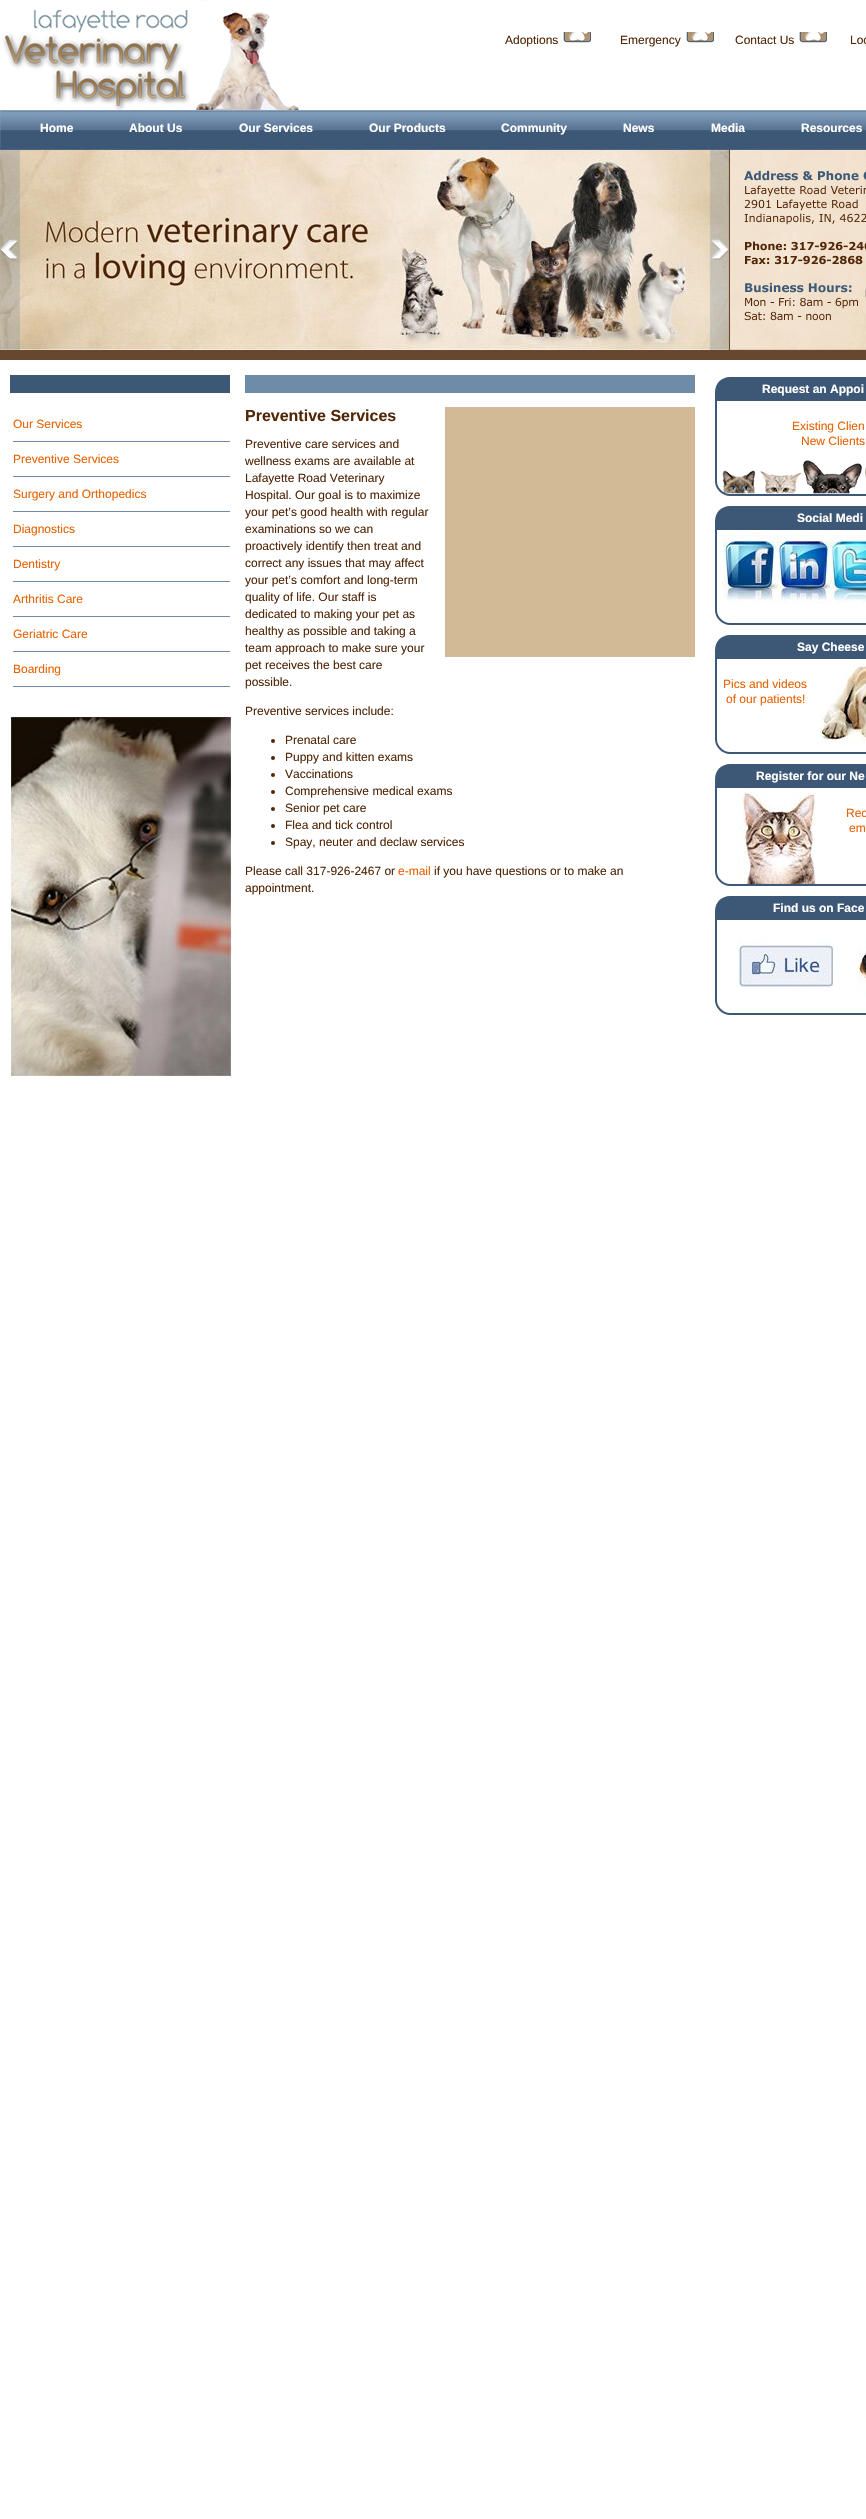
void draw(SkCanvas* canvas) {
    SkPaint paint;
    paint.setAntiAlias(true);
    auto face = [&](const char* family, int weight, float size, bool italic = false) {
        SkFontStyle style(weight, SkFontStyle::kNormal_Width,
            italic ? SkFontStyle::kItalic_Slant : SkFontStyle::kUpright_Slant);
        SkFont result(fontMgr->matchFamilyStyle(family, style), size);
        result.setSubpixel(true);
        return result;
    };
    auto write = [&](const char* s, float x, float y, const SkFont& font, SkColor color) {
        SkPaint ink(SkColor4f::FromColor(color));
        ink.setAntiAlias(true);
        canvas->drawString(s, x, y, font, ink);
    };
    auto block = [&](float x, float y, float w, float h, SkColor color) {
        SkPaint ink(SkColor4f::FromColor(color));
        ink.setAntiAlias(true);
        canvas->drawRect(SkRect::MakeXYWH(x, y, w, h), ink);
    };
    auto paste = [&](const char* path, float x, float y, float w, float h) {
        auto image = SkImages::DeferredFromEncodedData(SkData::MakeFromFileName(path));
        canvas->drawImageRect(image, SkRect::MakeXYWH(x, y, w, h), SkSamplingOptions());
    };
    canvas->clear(SK_ColorWHITE);
    paste("pic1.png", 2, 0, 297, 110);
    auto kFont1 = face("Liberation Sans", 400, 12);
    write("Adoptions", 505, 44, kFont1, SkColorSetRGB(82, 39, 8));
    paste("pic2.png", 563, 32, 28, 11);
    write("Emergency", 620, 44, kFont1, SkColorSetRGB(82, 39, 8));
    paste("pic2.png", 686, 32, 28, 11);
    write("Contact Us", 735, 44, kFont1, SkColorSetRGB(82, 39, 8));
    paste("pic2.png", 799, 32, 28, 11);
    write("Loc", 850, 44, kFont1, SkColorSetRGB(82, 39, 8));
    paste("pic3.png", 0, 110, 866, 40);
    auto kFont2 = face("Liberation Sans", 700, 12);
    write("Home", 40, 132, kFont2, SK_ColorWHITE);
    write("About Us", 129, 132, kFont2, SK_ColorWHITE);
    write("Our Services", 239, 132, kFont2, SK_ColorWHITE);
    write("Our Products", 369, 132, kFont2, SK_ColorWHITE);
    write("Community", 501, 132, kFont2, SK_ColorWHITE);
    write("News", 623, 132, kFont2, SK_ColorWHITE);
    write("Media", 711, 132, kFont2, SK_ColorWHITE);
    write("Resources", 801, 132, kFont2, SK_ColorWHITE);
    block(0, 350, 866, 10, SkColorSetRGB(104, 71, 48));
    paste("pic4.png", 0, 150, 730, 200);
    paste("pic5.png", 0, 150, 20, 200);
    paste("pic6.png", 710, 150, 20, 200);
    paste("pic7.png", 730, 150, 136, 200);
    block(10, 375, 220, 18, SkColorSetRGB(61, 88, 118));
    block(13, 441, 217, 1, SkColorSetRGB(112, 139, 169));
    write("Our Services", 13, 428, kFont1, SkColorSetRGB(231, 98, 2));
    block(13, 476, 217, 1, SkColorSetRGB(112, 139, 169));
    write("Preventive Services", 13, 463, kFont1, SkColorSetRGB(231, 98, 2));
    block(13, 511, 217, 1, SkColorSetRGB(112, 139, 169));
    write("Surgery and Orthopedics", 13, 498, kFont1, SkColorSetRGB(231, 98, 2));
    block(13, 546, 217, 1, SkColorSetRGB(112, 139, 169));
    write("Diagnostics", 13, 533, kFont1, SkColorSetRGB(231, 98, 2));
    block(13, 581, 217, 1, SkColorSetRGB(112, 139, 169));
    write("Dentistry", 13, 568, kFont1, SkColorSetRGB(231, 98, 2));
    block(13, 616, 217, 1, SkColorSetRGB(112, 139, 169));
    write("Arthritis Care", 13, 603, kFont1, SkColorSetRGB(231, 98, 2));
    block(13, 651, 217, 1, SkColorSetRGB(112, 139, 169));
    write("Geriatric Care", 13, 638, kFont1, SkColorSetRGB(231, 98, 2));
    block(13, 686, 217, 1, SkColorSetRGB(112, 139, 169));
    write("Boarding", 13, 673, kFont1, SkColorSetRGB(231, 98, 2));
    paste("pic8.png", 10, 716, 222, 361);
    block(245, 375, 450, 18, SkColorSetRGB(111, 139, 170));
    auto kFont3 = face("Liberation Sans", 700, 16);
    write("Preventive Services", 245, 421, kFont3, SkColorSetRGB(82, 39, 8));
    block(445, 407, 250, 250, SkColorSetRGB(210, 186, 150));
    write("Preventive care services and", 245, 448, kFont1, SkColorSetRGB(82, 39, 8));
    write("wellness exams are available at", 245, 465, kFont1, SkColorSetRGB(82, 39, 8));
    write("Lafayette Road Veterinary", 245, 482, kFont1, SkColorSetRGB(82, 39, 8));
    write("Hospital. Our goal is to maximize", 245, 499, kFont1, SkColorSetRGB(82, 39, 8));
    write("your pet’s good health with regular", 245, 516, kFont1, SkColorSetRGB(82, 39, 8));
    write("examinations so we can", 245, 533, kFont1, SkColorSetRGB(82, 39, 8));
    write("proactively identify then treat and", 245, 550, kFont1, SkColorSetRGB(82, 39, 8));
    write("correct any issues that may affect", 245, 567, kFont1, SkColorSetRGB(82, 39, 8));
    write("your pet’s comfort and long-term", 245, 584, kFont1, SkColorSetRGB(82, 39, 8));
    write("quality of life. Our staff is", 245, 601, kFont1, SkColorSetRGB(82, 39, 8));
    write("dedicated to making your pet as", 245, 618, kFont1, SkColorSetRGB(82, 39, 8));
    write("healthy as possible and taking a", 245, 635, kFont1, SkColorSetRGB(82, 39, 8));
    write("team approach to make sure your", 245, 652, kFont1, SkColorSetRGB(82, 39, 8));
    write("pet receives the best care", 245, 669, kFont1, SkColorSetRGB(82, 39, 8));
    write("possible.", 245, 686, kFont1, SkColorSetRGB(82, 39, 8));
    write("Preventive services include:", 245, 715, kFont1, SkColorSetRGB(82, 39, 8));
    paint.setColor(SkColorSetRGB(82, 39, 8));
    canvas->drawCircle(273, 741, 2, paint);
    write("Prenatal care", 285, 744, kFont1, SkColorSetRGB(82, 39, 8));
    canvas->drawCircle(273, 758, 2, paint);
    write("Puppy and kitten exams", 285, 761, kFont1, SkColorSetRGB(82, 39, 8));
    canvas->drawCircle(273, 775, 2, paint);
    write("Vaccinations", 285, 778, kFont1, SkColorSetRGB(82, 39, 8));
    canvas->drawCircle(273, 792, 2, paint);
    write("Comprehensive medical exams", 285, 795, kFont1, SkColorSetRGB(82, 39, 8));
    canvas->drawCircle(273, 809, 2, paint);
    write("Senior pet care", 285, 812, kFont1, SkColorSetRGB(82, 39, 8));
    canvas->drawCircle(273, 826, 2, paint);
    write("Flea and tick control", 285, 829, kFont1, SkColorSetRGB(82, 39, 8));
    canvas->drawCircle(273, 843, 2, paint);
    write("Spay, neuter and declaw services", 285, 846, kFont1, SkColorSetRGB(82, 39, 8));
    write("Please call 317-926-2467 or", 245, 875, kFont1, SkColorSetRGB(82, 39, 8));
    write("e-mail", 398, 875, kFont1, SkColorSetRGB(231, 98, 2));
    write("if you have questions or to make an", 434, 875, kFont1, SkColorSetRGB(82, 39, 8));
    write("appointment.", 245, 892, kFont1, SkColorSetRGB(82, 39, 8));
    paste("pic9.png", 722, 460, 144, 34);
    paint.setStyle(SkPaint::kStroke_Style);
    paint.setStrokeWidth(2);
    paint.setColor(SkColorSetRGB(61, 88, 118));
    canvas->drawPath(SkPathBuilder().moveTo(716, 396).lineTo(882, 396).lineTo(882, 481).cubicTo(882, 488.5f, 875.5f, 495, 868, 495).lineTo(730, 495).cubicTo(722.5f, 495, 716, 488.5f, 716, 481).close().detach(), paint);
    paint.setStyle(SkPaint::kFill_Style);
    canvas->drawPath(SkPathBuilder().moveTo(730, 377).lineTo(866, 377).cubicTo(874.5f, 377, 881, 383.5f, 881, 392).lineTo(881, 401).lineTo(715, 401).lineTo(715, 392).cubicTo(715, 383.5f, 721.5f, 377, 730, 377).close().detach(), paint);
    write("Request an Appoi", 762, 393, kFont2, SK_ColorWHITE);
    write("Existing Clien", 792, 430, kFont1, SkColorSetRGB(231, 98, 2));
    write("New Clients", 801, 445, kFont1, SkColorSetRGB(231, 98, 2));
    paint.setStyle(SkPaint::kStroke_Style);
    canvas->drawPath(SkPathBuilder().moveTo(716, 525).lineTo(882, 525).lineTo(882, 610).cubicTo(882, 617.5f, 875.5f, 624, 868, 624).lineTo(730, 624).cubicTo(722.5f, 624, 716, 617.5f, 716, 610).close().detach(), paint);
    paint.setStyle(SkPaint::kFill_Style);
    canvas->drawPath(SkPathBuilder().moveTo(730, 506).lineTo(866, 506).cubicTo(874.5f, 506, 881, 512.5f, 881, 521).lineTo(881, 530).lineTo(715, 530).lineTo(715, 521).cubicTo(715, 512.5f, 721.5f, 506, 730, 506).close().detach(), paint);
    write("Social Medi", 797, 522, kFont2, SK_ColorWHITE);
    paste("pic10.png", 723, 533, 54, 70);
    paste("pic11.png", 777, 533, 53, 70);
    paste("pic12.png", 830, 533, 36, 70);
    paint.setStyle(SkPaint::kStroke_Style);
    canvas->drawPath(SkPathBuilder().moveTo(716, 654).lineTo(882, 654).lineTo(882, 739).cubicTo(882, 746.5f, 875.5f, 753, 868, 753).lineTo(730, 753).cubicTo(722.5f, 753, 716, 746.5f, 716, 739).close().detach(), paint);
    paint.setStyle(SkPaint::kFill_Style);
    canvas->drawPath(SkPathBuilder().moveTo(730, 635).lineTo(866, 635).cubicTo(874.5f, 635, 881, 641.5f, 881, 650).lineTo(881, 659).lineTo(715, 659).lineTo(715, 650).cubicTo(715, 641.5f, 721.5f, 635, 730, 635).close().detach(), paint);
    write("Say Cheese", 797, 651, kFont2, SK_ColorWHITE);
    write("Pics and videos", 723, 688, kFont1, SkColorSetRGB(231, 98, 2));
    paste("pic13.png", 820, 662, 46, 80);
    write("of our patients!", 726, 703, kFont1, SkColorSetRGB(231, 98, 2));
    paint.setStyle(SkPaint::kStroke_Style);
    canvas->drawPath(SkPathBuilder().moveTo(716, 783).lineTo(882, 783).lineTo(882, 871).cubicTo(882, 878.5f, 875.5f, 885, 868, 885).lineTo(730, 885).cubicTo(722.5f, 885, 716, 878.5f, 716, 871).close().detach(), paint);
    paint.setStyle(SkPaint::kFill_Style);
    canvas->drawPath(SkPathBuilder().moveTo(730, 764).lineTo(866, 764).cubicTo(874.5f, 764, 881, 770.5f, 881, 779).lineTo(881, 788).lineTo(715, 788).lineTo(715, 779).cubicTo(715, 770.5f, 721.5f, 764, 730, 764).close().detach(), paint);
    write("Register for our Ne", 756, 780, kFont2, SK_ColorWHITE);
    paste("pic14.png", 735, 791, 82, 93);
    write("Rec", 846, 817, kFont1, SkColorSetRGB(231, 98, 2));
    write("em", 849, 832, kFont1, SkColorSetRGB(231, 98, 2));
    paint.setStyle(SkPaint::kStroke_Style);
    canvas->drawPath(SkPathBuilder().moveTo(716, 915).lineTo(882, 915).lineTo(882, 1000).cubicTo(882, 1007.5f, 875.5f, 1014, 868, 1014).lineTo(730, 1014).cubicTo(722.5f, 1014, 716, 1007.5f, 716, 1000).close().detach(), paint);
    paint.setStyle(SkPaint::kFill_Style);
    canvas->drawPath(SkPathBuilder().moveTo(730, 896).lineTo(866, 896).cubicTo(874.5f, 896, 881, 902.5f, 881, 911).lineTo(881, 920).lineTo(715, 920).lineTo(715, 911).cubicTo(715, 902.5f, 721.5f, 896, 730, 896).close().detach(), paint);
    write("Find us on Face", 773, 912, kFont2, SK_ColorWHITE);
    paste("pic15.png", 738, 939, 96, 48);
    paste("pic16.png", 858, 939, 8, 58);
}
